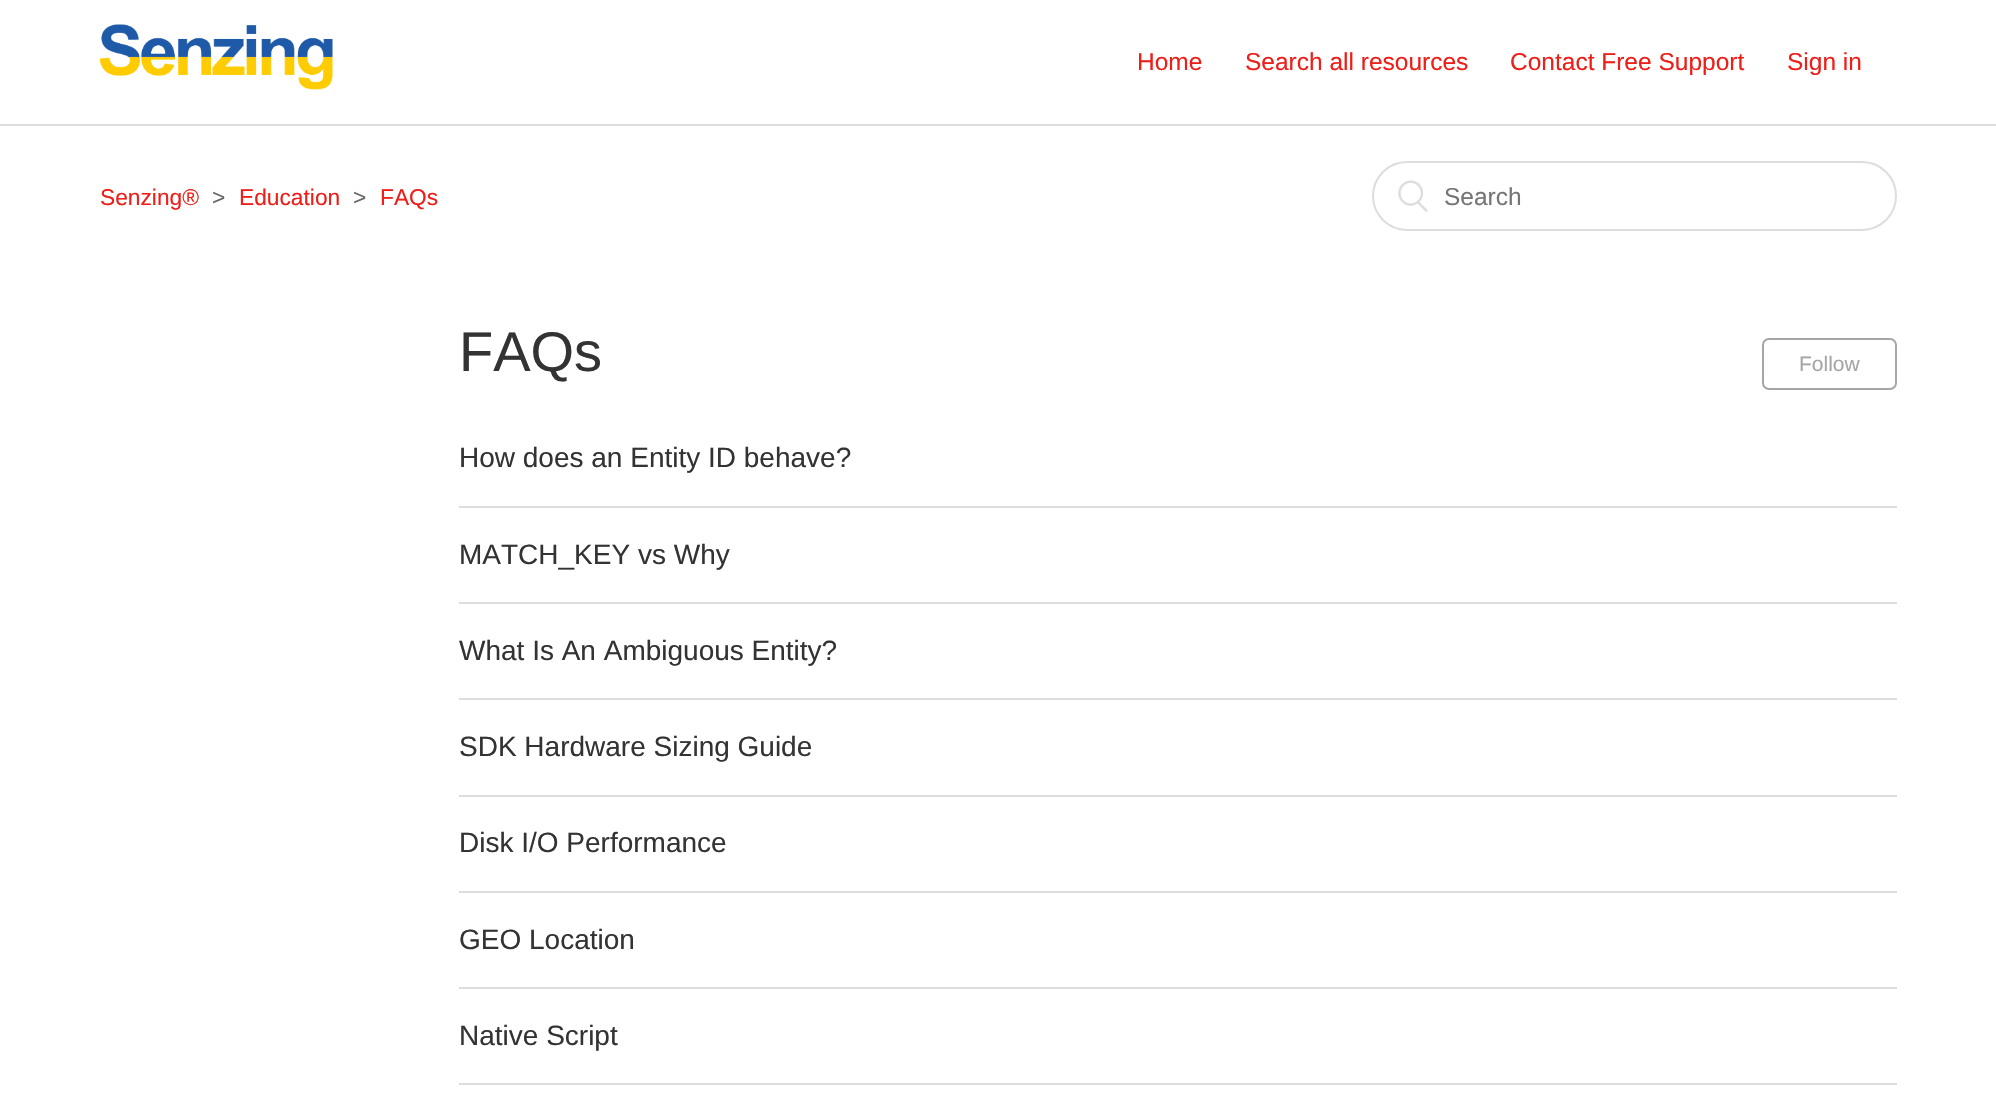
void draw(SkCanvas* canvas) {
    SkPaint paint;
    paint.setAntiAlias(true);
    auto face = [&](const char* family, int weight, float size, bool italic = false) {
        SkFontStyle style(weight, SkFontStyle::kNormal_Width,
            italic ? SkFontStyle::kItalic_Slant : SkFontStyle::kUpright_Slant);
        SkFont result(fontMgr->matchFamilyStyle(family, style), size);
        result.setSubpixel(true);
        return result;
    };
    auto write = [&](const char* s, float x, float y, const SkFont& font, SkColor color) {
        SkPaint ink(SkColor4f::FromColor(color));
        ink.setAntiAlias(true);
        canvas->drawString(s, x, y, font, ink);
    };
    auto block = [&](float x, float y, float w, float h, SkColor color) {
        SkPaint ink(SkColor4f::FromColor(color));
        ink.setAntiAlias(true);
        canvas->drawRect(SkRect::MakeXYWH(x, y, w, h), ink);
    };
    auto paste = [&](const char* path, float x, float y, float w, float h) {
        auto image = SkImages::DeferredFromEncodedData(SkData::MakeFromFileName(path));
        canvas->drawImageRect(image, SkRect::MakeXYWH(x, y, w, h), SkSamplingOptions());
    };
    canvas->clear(SK_ColorWHITE);
    paste("pic1.png", 99, 24, 234, 66);
    auto kFont1 = face("Liberation Sans", 400, 24.5f);
    write("Home", 1137, 70, kFont1, SkColorSetRGB(238, 30, 25));
    write("Search all resources", 1245, 70, kFont1, SkColorSetRGB(238, 30, 25));
    write("Contact Free Support", 1510, 70, kFont1, SkColorSetRGB(238, 30, 25));
    write("Sign in", 1787, 70, kFont1, SkColorSetRGB(238, 30, 25));
    block(0, 124, 1996, 2, SkColorSetRGB(221, 221, 221));
    auto kFont2 = face("Liberation Sans", 400, 22.75f);
    write("Senzing®", 100, 205, kFont2, SkColorSetRGB(238, 30, 25));
    write(">", 212, 205, kFont2, SkColorSetRGB(102, 102, 102));
    write("Education", 239, 205, kFont2, SkColorSetRGB(238, 30, 25));
    write(">", 353, 205, kFont2, SkColorSetRGB(102, 102, 102));
    write("FAQs", 380, 205, kFont2, SkColorSetRGB(238, 30, 25));
    paint.setStyle(SkPaint::kStroke_Style);
    paint.setStrokeWidth(2);
    paint.setColor(SkColorSetRGB(221, 221, 221));
    canvas->drawRoundRect(SkRect::MakeXYWH(1373, 162, 523, 68), 34, 34, paint);
    paste("pic2.png", 1398, 180, 30, 32);
    write("Search", 1444, 205, kFont1, SkColorSetRGB(117, 117, 117));
    auto kFont3 = face("Liberation Sans", 400, 56);
    write("FAQs", 459, 371, kFont3, SkColorSetRGB(51, 51, 51));
    paint.setColor(SkColorSetRGB(168, 165, 165));
    canvas->drawRoundRect(SkRect::MakeXYWH(1763, 339, 133, 50), 6, 6, paint);
    auto kFont4 = face("Liberation Sans", 400, 21);
    write("Follow", 1799, 371, kFont4, SkColorSetRGB(168, 165, 165));
    block(459, 506, 1438, 2, SkColorSetRGB(221, 221, 221));
    auto kFont5 = face("Liberation Sans", 400, 28);
    write("How does an Entity ID behave?", 459, 467, kFont5, SkColorSetRGB(51, 51, 51));
    block(459, 602, 1438, 2, SkColorSetRGB(221, 221, 221));
    write("MATCH_KEY vs Why", 459, 564, kFont5, SkColorSetRGB(51, 51, 51));
    block(459, 698, 1438, 2, SkColorSetRGB(221, 221, 221));
    write("What Is An Ambiguous Entity?", 459, 660, kFont5, SkColorSetRGB(51, 51, 51));
    block(459, 795, 1438, 2, SkColorSetRGB(221, 221, 221));
    write("SDK Hardware Sizing Guide", 459, 756, kFont5, SkColorSetRGB(51, 51, 51));
    block(459, 891, 1438, 2, SkColorSetRGB(221, 221, 221));
    write("Disk I/O Performance", 459, 852, kFont5, SkColorSetRGB(51, 51, 51));
    block(459, 987, 1438, 2, SkColorSetRGB(221, 221, 221));
    write("GEO Location", 459, 949, kFont5, SkColorSetRGB(51, 51, 51));
    block(459, 1083, 1438, 2, SkColorSetRGB(221, 221, 221));
    write("Native Script", 459, 1045, kFont5, SkColorSetRGB(51, 51, 51));
}
